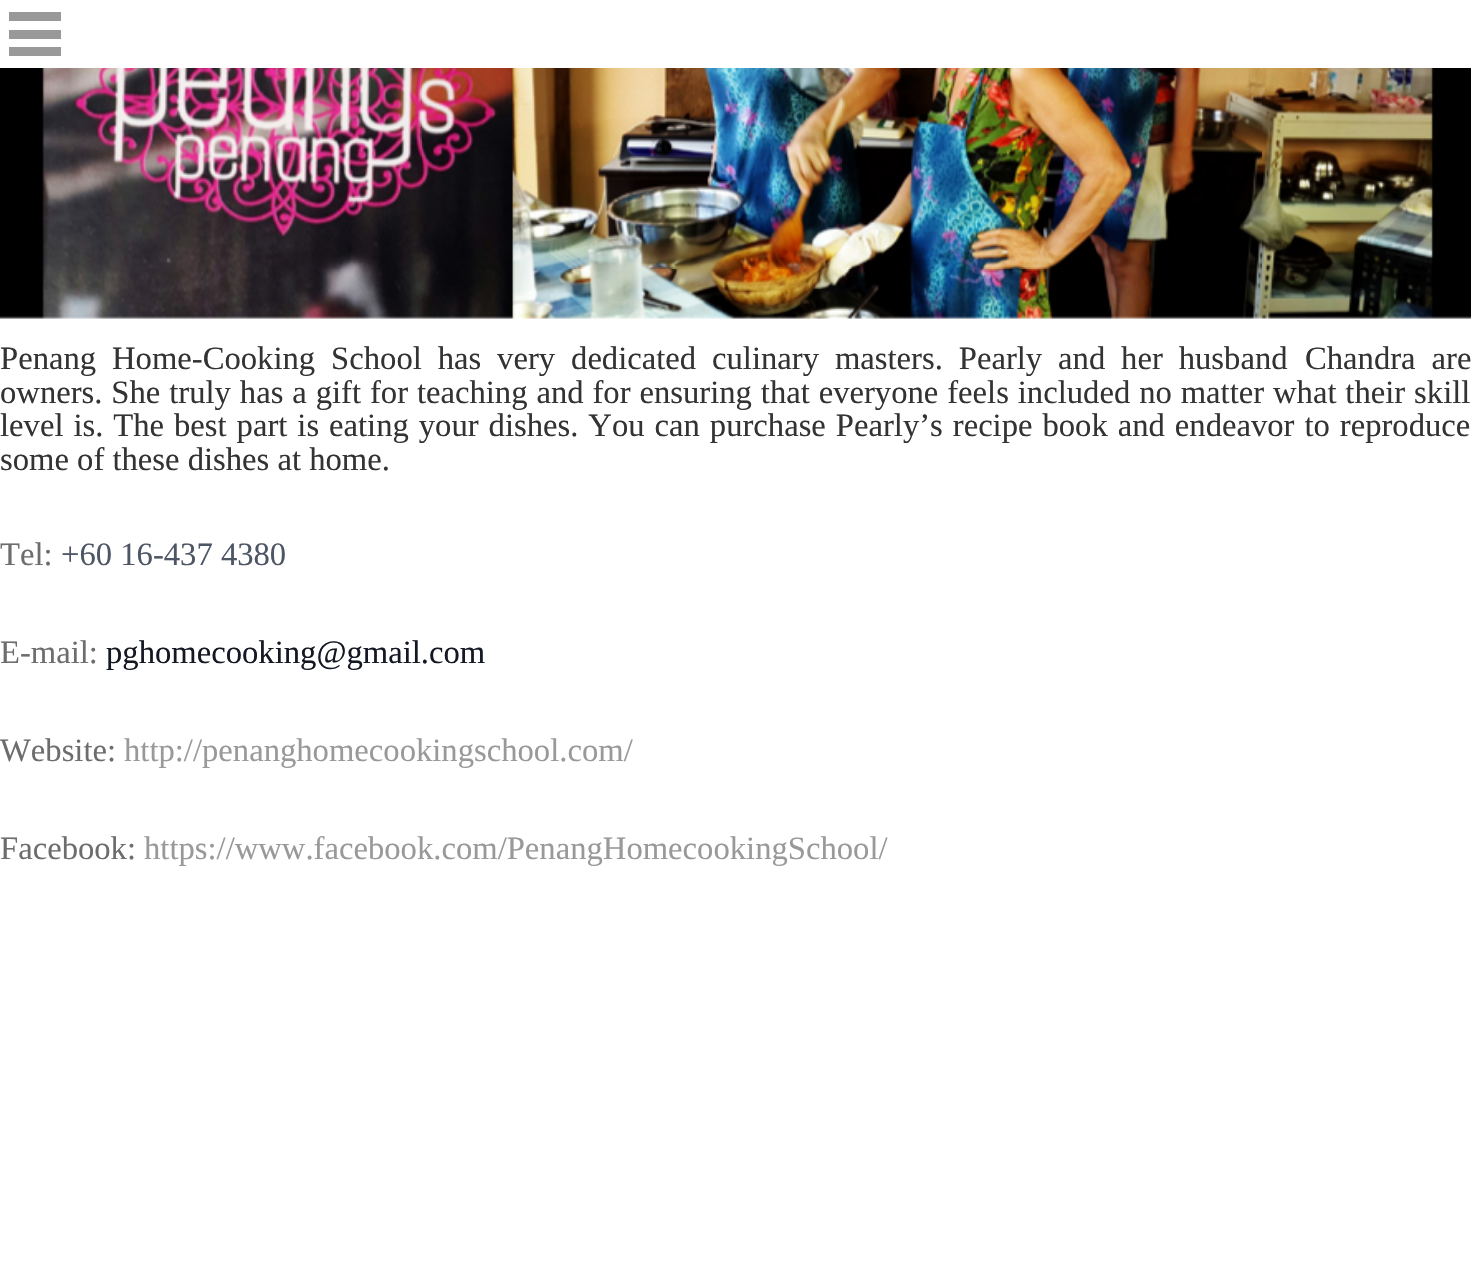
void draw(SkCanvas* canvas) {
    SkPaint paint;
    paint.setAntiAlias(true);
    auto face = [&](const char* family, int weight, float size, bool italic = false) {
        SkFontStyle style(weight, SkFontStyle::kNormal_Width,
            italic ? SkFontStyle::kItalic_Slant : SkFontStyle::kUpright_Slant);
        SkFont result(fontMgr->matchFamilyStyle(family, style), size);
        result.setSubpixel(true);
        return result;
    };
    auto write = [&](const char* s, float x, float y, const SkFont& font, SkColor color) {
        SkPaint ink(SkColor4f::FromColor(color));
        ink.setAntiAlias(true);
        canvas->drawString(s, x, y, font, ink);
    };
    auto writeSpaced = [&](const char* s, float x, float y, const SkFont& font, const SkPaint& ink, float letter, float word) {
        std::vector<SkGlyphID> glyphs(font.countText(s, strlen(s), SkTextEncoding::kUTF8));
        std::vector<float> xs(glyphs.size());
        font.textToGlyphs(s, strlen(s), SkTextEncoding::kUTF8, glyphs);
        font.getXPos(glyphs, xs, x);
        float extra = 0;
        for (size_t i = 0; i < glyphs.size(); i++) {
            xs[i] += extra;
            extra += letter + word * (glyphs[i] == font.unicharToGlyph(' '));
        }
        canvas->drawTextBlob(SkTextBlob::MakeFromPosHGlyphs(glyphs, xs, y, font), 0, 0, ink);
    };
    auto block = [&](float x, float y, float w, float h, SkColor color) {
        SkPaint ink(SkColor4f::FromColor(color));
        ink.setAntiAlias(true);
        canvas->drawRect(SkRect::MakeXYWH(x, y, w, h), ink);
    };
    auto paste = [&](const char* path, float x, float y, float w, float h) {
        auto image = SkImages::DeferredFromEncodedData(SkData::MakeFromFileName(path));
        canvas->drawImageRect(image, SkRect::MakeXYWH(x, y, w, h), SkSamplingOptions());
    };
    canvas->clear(SK_ColorWHITE);
    block(9, 12, 52, 9, SkColorSetRGB(153, 153, 153));
    block(9, 30, 52, 9, SkColorSetRGB(153, 153, 153));
    block(9, 47, 52, 9, SkColorSetRGB(153, 153, 153));
    paste("pic1.png", 0, 68, 1471, 251);
    auto kFont1 = face("Liberation Serif", 400, 32.65f);
    paint.setColor(SkColorSetRGB(51, 51, 51));
    writeSpaced("Penang Home-Cooking School has very dedicated culinary masters. Pearly and her husband", 0, 369, kFont1, paint, 0, 7.75f);
    writeSpaced("Chandra are", 1305, 369, kFont1, paint, 0, 7.75f);
    writeSpaced("owners. She truly has a gift for teaching and for ensuring that everyone feels included no matter what their skill", 0, 403, kFont1, paint, 0, 0.75f);
    writeSpaced("level is. The best part is eating your dishes. You can purchase Pearly’s recipe book and endeavor to reproduce", 0, 436, kFont1, paint, 0, 1.8f);
    write("some of these dishes at home.", 0, 470, kFont1, SkColorSetRGB(51, 51, 51));
    write("Tel:", 0, 565, kFont1, SkColorSetRGB(109, 109, 109));
    write("+60 16-437 4380", 61, 565, kFont1, SkColorSetRGB(78, 86, 101));
    write("E-mail:", 0, 663, kFont1, SkColorSetRGB(109, 109, 109));
    write("pghomecooking@gmail.com", 106, 663, kFont1, SkColorSetRGB(20, 24, 35));
    write("Website:", 0, 761, kFont1, SkColorSetRGB(109, 109, 109));
    write("http://penanghomecookingschool.com/", 124, 761, kFont1, SkColorSetRGB(153, 153, 153));
    write("Facebook:", 0, 859, kFont1, SkColorSetRGB(109, 109, 109));
    write("https://www.facebook.com/PenangHomecookingSchool/", 144, 859, kFont1, SkColorSetRGB(153, 153, 153));
}
